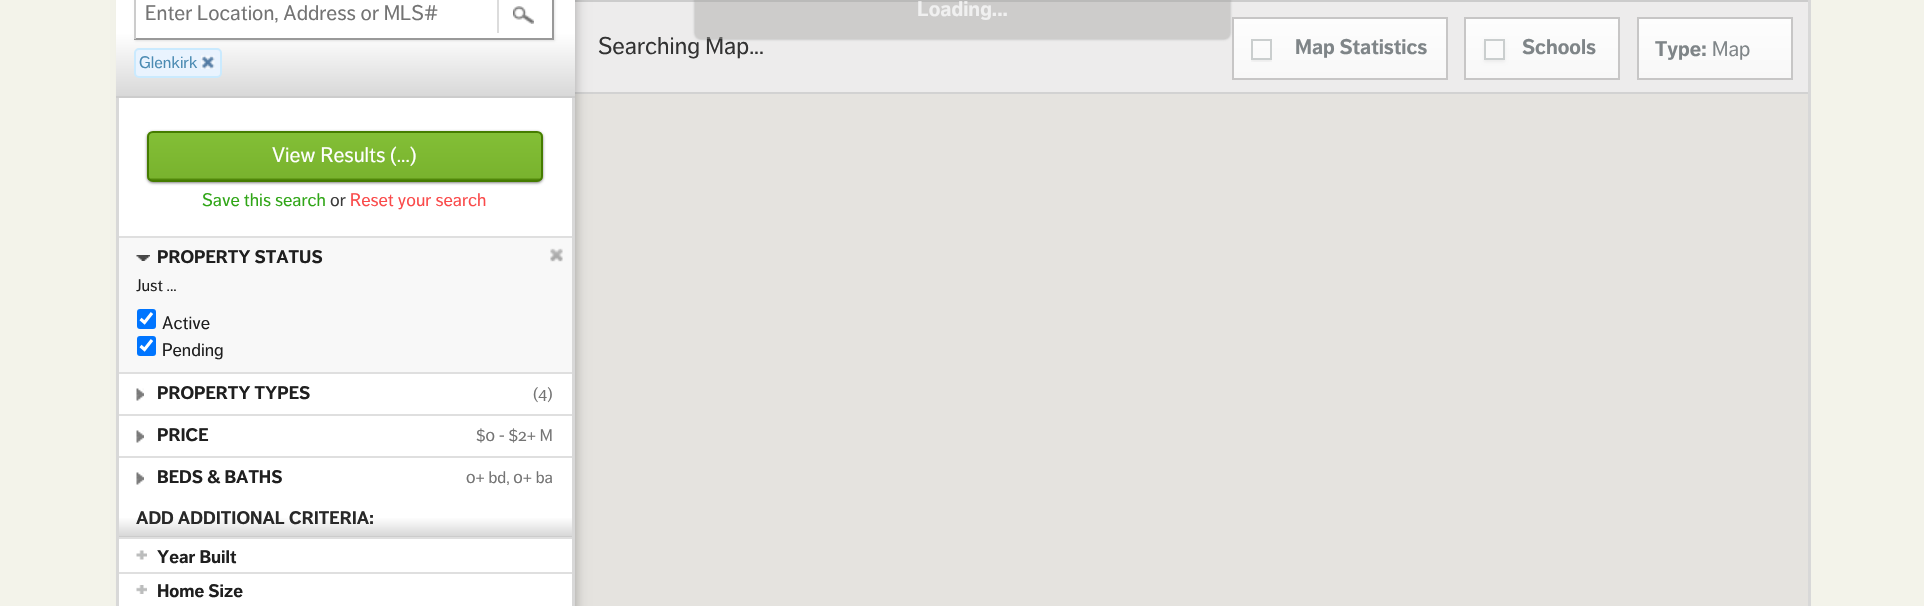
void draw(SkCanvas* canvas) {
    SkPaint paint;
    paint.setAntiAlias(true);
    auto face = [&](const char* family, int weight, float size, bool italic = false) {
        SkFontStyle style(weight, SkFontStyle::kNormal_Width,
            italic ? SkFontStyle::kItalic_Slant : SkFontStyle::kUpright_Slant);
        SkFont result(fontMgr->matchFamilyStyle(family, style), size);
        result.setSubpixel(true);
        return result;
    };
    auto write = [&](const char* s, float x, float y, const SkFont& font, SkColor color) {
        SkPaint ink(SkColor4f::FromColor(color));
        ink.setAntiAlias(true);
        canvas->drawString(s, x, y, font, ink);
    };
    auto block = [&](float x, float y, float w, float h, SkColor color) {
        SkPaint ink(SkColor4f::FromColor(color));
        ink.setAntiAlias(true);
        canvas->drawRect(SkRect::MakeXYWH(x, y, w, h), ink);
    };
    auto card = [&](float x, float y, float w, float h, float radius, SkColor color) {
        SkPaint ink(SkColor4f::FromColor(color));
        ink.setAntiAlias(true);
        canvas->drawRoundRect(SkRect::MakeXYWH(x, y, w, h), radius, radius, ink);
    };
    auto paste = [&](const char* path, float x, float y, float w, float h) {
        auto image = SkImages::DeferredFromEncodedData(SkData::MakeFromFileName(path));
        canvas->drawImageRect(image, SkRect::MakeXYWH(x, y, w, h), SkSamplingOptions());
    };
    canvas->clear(SkColorSetRGB(243, 243, 234));
    block(575, 0, 1233, 2, SkColorSetRGB(204, 204, 204));
    block(575, 2, 1233, 90, SkColorSetRGB(237, 236, 236));
    {
        const SkColor colors[] = {SkColorSetRGB(253, 253, 253), SkColorSetRGB(248, 248, 248)};
        const float stops[] = {0, 1};
        const SkPoint ends[] = {{1340, 18}, {1340, 78}};
        paint.setShader(SkGradientShader::MakeLinear(ends, colors, stops, 2, SkTileMode::kClamp));
        paint.setAlpha(255);
    }
    canvas->drawRect(SkRect::MakeXYWH(1234, 19, 212, 59), paint);
    paint.setStyle(SkPaint::kStroke_Style);
    paint.setStrokeWidth(2);
    paint.setShader(nullptr);
    paint.setColor(SkColorSetRGB(199, 198, 198));
    canvas->drawRect(SkRect::MakeXYWH(1233, 18, 214, 61), paint);
    canvas->save();
    canvas->clipPath(SkPathBuilder(SkPathFillType::kEvenOdd).moveTo(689, 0).lineTo(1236, 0).lineTo(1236, 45).lineTo(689, 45).close().moveTo(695, -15).lineTo(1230, -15).lineTo(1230, 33).cubicTo(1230, 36.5f, 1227.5f, 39, 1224, 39).lineTo(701, 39).cubicTo(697.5f, 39, 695, 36.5f, 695, 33).close().detach(), true);
    paint.setStyle(SkPaint::kFill_Style);
    paint.setColor(SkColorSetARGB(179, 136, 136, 136));
    paint.setMaskFilter(SkMaskFilter::MakeBlur(kNormal_SkBlurStyle, 1.5f));
    canvas->drawRoundRect(SkRect::MakeXYWH(695, -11, 535, 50), 6, 6, paint);
    paint.setMaskFilter(nullptr);
    canvas->restore();
    auto kFont1 = face("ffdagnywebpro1", 400, 24);
    write("Searching Map...", 598, 54, kFont1, SkColorSetRGB(51, 51, 51));
    paint.setColor(SkColorSetARGB(112, 164, 163, 162));
    canvas->drawPath(SkPathBuilder().moveTo(695, -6).lineTo(1230, -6).lineTo(1230, 33).cubicTo(1230, 36.5f, 1227.5f, 39, 1224, 39).lineTo(701, 39).cubicTo(697.5f, 39, 695, 36.5f, 695, 33).close().detach(), paint);
    auto kFont2 = face("ffdagnywebpro1", 700, 21);
    write("Loading...", 917, 16, kFont2, SkColorSetRGB(240, 240, 240));
    block(575, 92, 1233, 2, SkColorSetRGB(210, 210, 210));
    block(575, 94, 1233, 512, SkColorSetRGB(229, 227, 223));
    paint.setColor(SkColorSetARGB(77, 0, 0, 0));
    paint.setMaskFilter(SkMaskFilter::MakeBlur(kNormal_SkBlurStyle, 6));
    canvas->drawRect(SkRect::MakeXYWH(128, -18, 447, 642), paint);
    paint.setMaskFilter(nullptr);
    block(119, 98, 453, 508, SK_ColorWHITE);
    {
        const SkColor colors[] = {SkColorSetRGB(216, 216, 216), SK_ColorWHITE, SK_ColorWHITE};
        const float stops[] = {0, 0.5f, 1};
        const SkPoint ends[] = {{116, 96}, {116, -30}};
        paint.setShader(SkGradientShader::MakeLinear(ends, colors, stops, 3, SkTileMode::kClamp));
        paint.setAlpha(255);
    }
    canvas->drawRect(SkRect::MakeXYWH(116, 0, 459, 96), paint);
    block(116, 96, 459, 2, SkColorSetRGB(204, 204, 204));
    paint.setShader(nullptr);
    paint.setColor(SkColorSetARGB(26, 0, 0, 0));
    paint.setMaskFilter(SkMaskFilter::MakeBlur(kNormal_SkBlurStyle, 1));
    canvas->drawRect(SkRect::MakeXYWH(135, -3, 420, 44), paint);
    paint.setMaskFilter(nullptr);
    block(136, 0, 416, 38, SK_ColorWHITE);
    block(552, 0, 2, 39, SkColorSetRGB(153, 153, 153));
    block(134, 38, 420, 2, SkColorSetRGB(153, 153, 153));
    block(134, 0, 2, 39, SkColorSetRGB(204, 204, 204));
    auto kFont3 = face("ffdagnywebpro1", 400, 21);
    write("Enter Location, Address or MLS#", 145, 20, kFont3, SkColorSetRGB(116, 116, 116));
    block(497, 0, 2, 33, SkColorSetRGB(220, 220, 220));
    paste("pic1.png", 513, 6, 21, 18);
    paint.setColor(SkColorSetRGB(233, 243, 254));
    canvas->drawRoundRect(SkRect::MakeXYWH(135, 49, 86, 28), 4, 4, paint);
    paint.setStyle(SkPaint::kStroke_Style);
    paint.setColor(SkColorSetRGB(202, 234, 254));
    canvas->drawRoundRect(SkRect::MakeXYWH(135, 49, 86, 28), 4, 4, paint);
    auto kFont4 = face("ffdagnywebpro1", 400, 16.5f);
    write("Glenkirk", 139, 68, kFont4, SkColorSetRGB(75, 139, 179));
    paste("pic2.png", 201, 55, 14, 14);
    block(572, 98, 3, 508, SkColorSetRGB(216, 216, 216));
    block(116, 98, 3, 508, SkColorSetRGB(216, 216, 216));
    paint.setStyle(SkPaint::kFill_Style);
    paint.setColor(SkColorSetARGB(128, 0, 0, 0));
    paint.setMaskFilter(SkMaskFilter::MakeBlur(kNormal_SkBlurStyle, 1.5f));
    canvas->drawRoundRect(SkRect::MakeXYWH(147, 132, 396, 51), 6, 6, paint);
    paint.setMaskFilter(nullptr);
    canvas->save();
    canvas->clipPath(SkPathBuilder().moveTo(153, 131).lineTo(537, 131).cubicTo(540.5f, 131, 543, 133.5f, 543, 137).lineTo(543, 176).cubicTo(543, 179.5f, 540.5f, 182, 537, 182).lineTo(153, 182).cubicTo(149.5f, 182, 147, 179.5f, 147, 176).lineTo(147, 137).cubicTo(147, 133.5f, 149.5f, 131, 153, 131).close().detach(), true);
    {
        const SkColor colors[] = {SkColorSetRGB(131, 191, 54), SkColorSetRGB(121, 179, 46), SkColorSetRGB(69, 124, 0)};
        const float stops[] = {0, 0.95f, 1};
        const SkPoint ends[] = {{345, 132}, {345, 180}};
        paint.setShader(SkGradientShader::MakeLinear(ends, colors, stops, 3, SkTileMode::kClamp));
        paint.setAlpha(255);
    }
    canvas->drawRect(SkRect::MakeXYWH(147, 132, 396, 48), paint);
    canvas->restore();
    paint.setStyle(SkPaint::kStroke_Style);
    paint.setShader(nullptr);
    paint.setColor(SkColorSetRGB(69, 124, 0));
    canvas->drawRoundRect(SkRect::MakeXYWH(148, 132, 394, 49), 5, 5, paint);
    write("View Results (...)", 272, 162, kFont3, SK_ColorWHITE);
    auto kFont5 = face("ffdagnywebpro1", 400, 18);
    write("Save this search", 202, 206, kFont5, SkColorSetRGB(48, 166, 23));
    write("or", 330, 206, kFont5, SkColorSetRGB(59, 59, 59));
    write("Reset your search", 350, 206, kFont5, SkColorSetRGB(250, 74, 74));
    block(119, 238, 453, 134, SkColorSetRGB(248, 248, 248));
    block(119, 236, 453, 2, SkColorSetRGB(223, 223, 223));
    paste("pic3.png", 136, 255, 14, 6);
    auto kFont6 = face("ffdagnywebpro1", 700, 18);
    write("PROPERTY STATUS", 157, 263, kFont6, SkColorSetRGB(31, 31, 31));
    paste("pic4.png", 550, 248, 13, 14);
    write("Just ...", 136, 291, kFont4, SkColorSetRGB(31, 31, 31));
    card(137, 309, 19, 20, 3, SkColorSetRGB(0, 117, 255));
    paint.setStrokeWidth(3.1f);
    paint.setColor(SK_ColorWHITE);
    canvas->drawPath(SkPathBuilder().moveTo(140.5f, 319).lineTo(144.5f, 322.5f).lineTo(152, 313).detach(), paint);
    write("Active", 162, 329, kFont5, SkColorSetRGB(31, 31, 31));
    card(137, 336, 19, 20, 3, SkColorSetRGB(0, 117, 255));
    canvas->drawPath(SkPathBuilder().moveTo(140.5f, 346).lineTo(144.5f, 349.5f).lineTo(152, 340).detach(), paint);
    write("Pending", 162, 356, kFont5, SkColorSetRGB(31, 31, 31));
    block(119, 372, 453, 2, SkColorSetRGB(223, 223, 223));
    paste("pic5.png", 136, 388, 8, 13);
    write("PROPERTY TYPES", 157, 399, kFont6, SkColorSetRGB(31, 31, 31));
    write("(4)", 533, 399, kFont4, SkColorSetRGB(116, 116, 116));
    block(119, 414, 453, 2, SkColorSetRGB(223, 223, 223));
    paste("pic5.png", 136, 430, 8, 13);
    write("PRICE", 157, 441, kFont6, SkColorSetRGB(31, 31, 31));
    write("$0 - $2+ M", 476, 441, kFont4, SkColorSetRGB(116, 116, 116));
    block(119, 456, 453, 2, SkColorSetRGB(223, 223, 223));
    paste("pic5.png", 136, 472, 8, 13);
    write("BEDS & BATHS", 157, 483, kFont6, SkColorSetRGB(31, 31, 31));
    write("0+ bd, 0+ ba", 466, 483, kFont4, SkColorSetRGB(116, 116, 116));
    paint.setStyle(SkPaint::kFill_Style);
    {
        const SkColor colors[] = {SkColorSetRGB(216, 216, 216), SK_ColorWHITE, SK_ColorWHITE};
        const float stops[] = {0, 0.5f, 1};
        const SkPoint ends[] = {{119, 536}, {119, 498}};
        paint.setShader(SkGradientShader::MakeLinear(ends, colors, stops, 3, SkTileMode::kClamp));
        paint.setAlpha(255);
    }
    canvas->drawRect(SkRect::MakeXYWH(119, 518, 453, 18), paint);
    block(119, 536, 453, 1, SkColorSetRGB(204, 204, 204));
    write("ADD ADDITIONAL CRITERIA:", 136, 524, kFont6, SkColorSetRGB(41, 41, 41));
    block(119, 537, 453, 2, SkColorSetRGB(223, 223, 223));
    paste("pic6.png", 136, 550, 11, 10);
    write("Year Built", 157, 563, kFont6, SkColorSetRGB(31, 31, 31));
    block(119, 572, 453, 2, SkColorSetRGB(223, 223, 223));
    paste("pic7.png", 136, 585, 11, 9);
    write("Home Size", 157, 597, kFont6, SkColorSetRGB(31, 31, 31));
    block(1808, 0, 3, 606, SkColorSetRGB(216, 216, 216));
    canvas->save();
    canvas->clipRect(SkRect::MakeXYWH(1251, 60, 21, 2));
    paint.setShader(nullptr);
    paint.setColor(SkColorSetARGB(13, 0, 0, 0));
    paint.setMaskFilter(SkMaskFilter::MakeBlur(kNormal_SkBlurStyle, 1.5f));
    canvas->drawRect(SkRect::MakeXYWH(1251, 41, 21, 21), paint);
    paint.setMaskFilter(nullptr);
    canvas->restore();
    paint.setStyle(SkPaint::kStroke_Style);
    paint.setStrokeWidth(2);
    paint.setColor(SkColorSetRGB(202, 206, 206));
    canvas->drawRect(SkRect::MakeXYWH(1252, 40, 19, 19), paint);
    write("Map Statistics", 1295, 54, kFont2, SkColorSetRGB(127, 133, 136));
    paint.setStyle(SkPaint::kFill_Style);
    {
        const SkColor colors[] = {SkColorSetRGB(253, 253, 253), SkColorSetRGB(248, 248, 248)};
        const float stops[] = {0, 1};
        const SkPoint ends[] = {{1542, 18}, {1542, 78}};
        paint.setShader(SkGradientShader::MakeLinear(ends, colors, stops, 2, SkTileMode::kClamp));
        paint.setAlpha(255);
    }
    canvas->drawRect(SkRect::MakeXYWH(1466, 19, 152, 59), paint);
    paint.setStyle(SkPaint::kStroke_Style);
    paint.setShader(nullptr);
    paint.setColor(SkColorSetRGB(199, 198, 198));
    canvas->drawRect(SkRect::MakeXYWH(1465, 18, 154, 61), paint);
    paint.setStyle(SkPaint::kFill_Style);
    paint.setColor(SkColorSetARGB(13, 0, 0, 0));
    paint.setMaskFilter(SkMaskFilter::MakeBlur(kNormal_SkBlurStyle, 1.5f));
    canvas->drawRect(SkRect::MakeXYWH(1484, 41, 21, 21), paint);
    paint.setMaskFilter(nullptr);
    paint.setColor(SkColorSetRGB(250, 250, 250));
    canvas->drawRect(SkRect::MakeXYWH(1485, 40, 19, 19), paint);
    paint.setStyle(SkPaint::kStroke_Style);
    paint.setColor(SkColorSetRGB(202, 206, 206));
    canvas->drawRect(SkRect::MakeXYWH(1485, 40, 19, 19), paint);
    write("Schools", 1522, 54, kFont2, SkColorSetRGB(127, 133, 136));
    paint.setStyle(SkPaint::kFill_Style);
    {
        const SkColor colors[] = {SkColorSetRGB(253, 253, 253), SkColorSetRGB(248, 248, 248)};
        const float stops[] = {0, 1};
        const SkPoint ends[] = {{1715, 18}, {1715, 78}};
        paint.setShader(SkGradientShader::MakeLinear(ends, colors, stops, 2, SkTileMode::kClamp));
        paint.setAlpha(255);
    }
    canvas->drawRect(SkRect::MakeXYWH(1639, 19, 152, 59), paint);
    paint.setStyle(SkPaint::kStroke_Style);
    paint.setShader(nullptr);
    paint.setColor(SkColorSetRGB(199, 198, 198));
    canvas->drawRect(SkRect::MakeXYWH(1638, 18, 154, 61), paint);
    write("Type:", 1655, 56, kFont2, SkColorSetRGB(127, 133, 136));
    write("Map", 1712, 56, kFont3, SkColorSetRGB(127, 133, 136));
}
